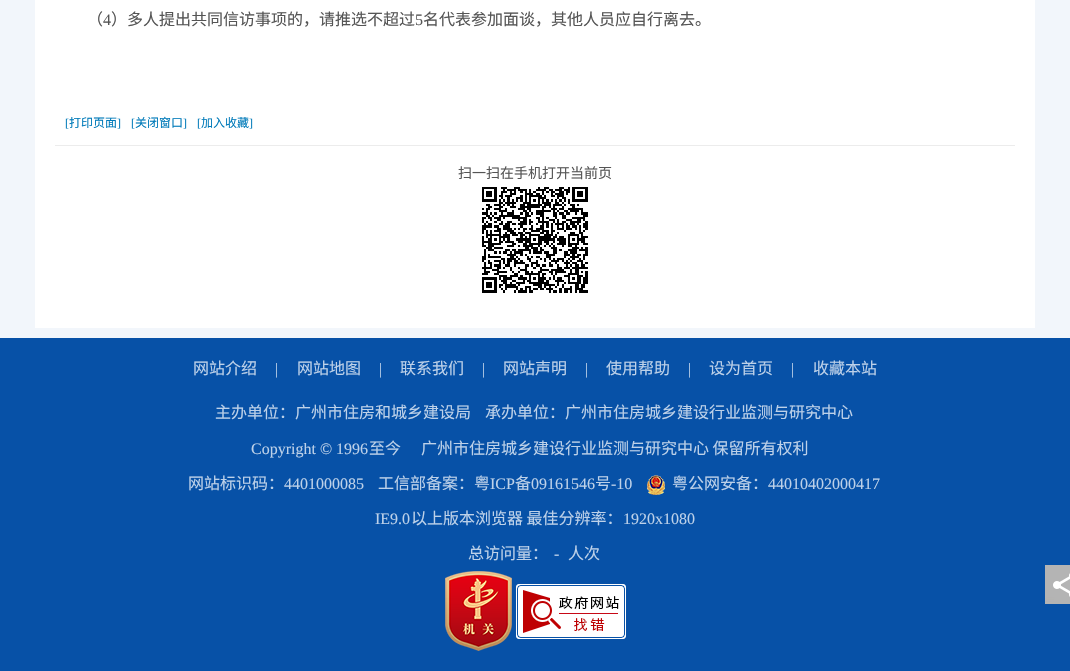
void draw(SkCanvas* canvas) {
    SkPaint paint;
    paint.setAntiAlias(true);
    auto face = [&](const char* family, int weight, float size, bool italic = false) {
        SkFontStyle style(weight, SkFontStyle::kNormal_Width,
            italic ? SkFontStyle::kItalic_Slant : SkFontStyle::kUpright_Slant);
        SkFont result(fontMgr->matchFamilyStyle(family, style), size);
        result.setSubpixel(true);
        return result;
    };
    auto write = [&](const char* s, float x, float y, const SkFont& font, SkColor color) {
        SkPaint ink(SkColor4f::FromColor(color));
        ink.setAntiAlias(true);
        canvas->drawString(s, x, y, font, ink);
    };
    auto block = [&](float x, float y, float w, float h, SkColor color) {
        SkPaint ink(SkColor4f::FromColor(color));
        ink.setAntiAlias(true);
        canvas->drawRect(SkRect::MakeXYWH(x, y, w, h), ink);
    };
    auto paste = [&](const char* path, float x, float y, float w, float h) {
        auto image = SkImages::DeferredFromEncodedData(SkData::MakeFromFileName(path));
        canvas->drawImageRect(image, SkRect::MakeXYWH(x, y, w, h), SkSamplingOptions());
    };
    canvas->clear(SkColorSetRGB(242, 246, 251));
    block(35, 0, 1000, 328, SK_ColorWHITE);
    auto kFont1 = face("Noto Sans CJK SC", 400, 16);
    write("（", 87, 25, kFont1, SkColorSetRGB(85, 85, 85));
    auto kFont2 = face("Liberation Serif", 400, 16);
    write("4", 103, 25, kFont2, SkColorSetRGB(85, 85, 85));
    write("）多人提出共同信访事项的，请推选不超过", 111, 25, kFont1, SkColorSetRGB(85, 85, 85));
    write("5", 415, 25, kFont2, SkColorSetRGB(85, 85, 85));
    write("名代表参加面谈，其他人员应自行离去。", 423, 25, kFont1, SkColorSetRGB(85, 85, 85));
    auto kFont3 = face("Liberation Serif", 400, 12);
    write("[", 65, 127, kFont3, SkColorSetRGB(0, 122, 185));
    auto kFont4 = face("Noto Sans CJK SC", 400, 12);
    write("打印页面", 69, 127, kFont4, SkColorSetRGB(0, 122, 185));
    write("]", 117, 127, kFont3, SkColorSetRGB(0, 122, 185));
    write("[", 131, 127, kFont3, SkColorSetRGB(0, 122, 185));
    write("关闭窗口", 135, 127, kFont4, SkColorSetRGB(0, 122, 185));
    write("]", 183, 127, kFont3, SkColorSetRGB(0, 122, 185));
    write("[", 197, 127, kFont3, SkColorSetRGB(0, 122, 185));
    write("加入收藏", 201, 127, kFont4, SkColorSetRGB(0, 122, 185));
    write("]", 249, 127, kFont3, SkColorSetRGB(0, 122, 185));
    block(55, 145, 960, 1, SkColorSetRGB(236, 236, 236));
    auto kFont5 = face("Noto Sans CJK SC", 400, 14);
    write("扫一扫在手机打开当前页", 458, 178, kFont5, SkColorSetRGB(85, 85, 85));
    paste("pic1.png", 482, 187, 106, 106);
    block(0, 338, 1070, 333, SkColorSetRGB(7, 81, 167));
    write("网站介绍", 193, 374, kFont1, SkColorSetRGB(189, 209, 233));
    write("|", 275, 374, kFont2, SkColorSetRGB(189, 209, 233));
    write("网站地图", 297, 374, kFont1, SkColorSetRGB(189, 209, 233));
    write("|", 379, 374, kFont2, SkColorSetRGB(189, 209, 233));
    write("联系我们", 400, 374, kFont1, SkColorSetRGB(189, 209, 233));
    write("|", 482, 374, kFont2, SkColorSetRGB(189, 209, 233));
    write("网站声明", 503, 374, kFont1, SkColorSetRGB(189, 209, 233));
    write("|", 585, 374, kFont2, SkColorSetRGB(189, 209, 233));
    write("使用帮助", 606, 374, kFont1, SkColorSetRGB(189, 209, 233));
    write("|", 688, 374, kFont2, SkColorSetRGB(189, 209, 233));
    write("设为首页", 709, 374, kFont1, SkColorSetRGB(189, 209, 233));
    write("|", 791, 374, kFont2, SkColorSetRGB(189, 209, 233));
    write("收藏本站", 813, 374, kFont1, SkColorSetRGB(189, 209, 233));
    write("主办单位：广州市住房和城乡建设局", 215, 418, kFont1, SkColorSetRGB(189, 209, 233));
    write("承办单位：广州市住房城乡建设行业监测与研究中心", 485, 418, kFont1, SkColorSetRGB(189, 209, 233));
    write("Copyright © 1996", 251, 454, kFont2, SkColorSetRGB(189, 209, 233));
    write("至今", 369, 454, kFont1, SkColorSetRGB(189, 209, 233));
    write("广州市住房城乡建设行业监测与研究中心 保留所有权利", 421, 454, kFont1, SkColorSetRGB(189, 209, 233));
    write("网站标识码：", 188, 489, kFont1, SkColorSetRGB(189, 209, 233));
    write("4401000085", 284, 489, kFont2, SkColorSetRGB(189, 209, 233));
    write("工信部备案：粤", 378, 489, kFont1, SkColorSetRGB(189, 209, 233));
    write("ICP", 490, 489, kFont2, SkColorSetRGB(189, 209, 233));
    write("备", 515, 489, kFont1, SkColorSetRGB(189, 209, 233));
    write("09161546", 531, 489, kFont2, SkColorSetRGB(189, 209, 233));
    write("号", 595, 489, kFont1, SkColorSetRGB(189, 209, 233));
    write("-10", 611, 489, kFont2, SkColorSetRGB(189, 209, 233));
    paste("pic2.png", 647, 475, 18, 20);
    write("粤公网安备：", 672, 489, kFont1, SkColorSetRGB(189, 209, 233));
    write("44010402000417", 768, 489, kFont2, SkColorSetRGB(189, 209, 233));
    write("IE9.0", 375, 524, kFont2, SkColorSetRGB(189, 209, 233));
    write("以上版本浏览器 最佳分辨率：", 411, 524, kFont1, SkColorSetRGB(189, 209, 233));
    write("1920x1080", 623, 524, kFont2, SkColorSetRGB(189, 209, 233));
    write("总访问量：", 468, 559, kFont1, SkColorSetRGB(189, 209, 233));
    write("-", 554, 559, kFont2, SkColorSetRGB(189, 209, 233));
    write("人次", 568, 559, kFont1, SkColorSetRGB(189, 209, 233));
    paste("pic3.png", 445, 571, 67, 80);
    paste("pic4.png", 516, 584, 110, 55);
    paste("pic5.png", 1045, 565, 25, 39);
}
